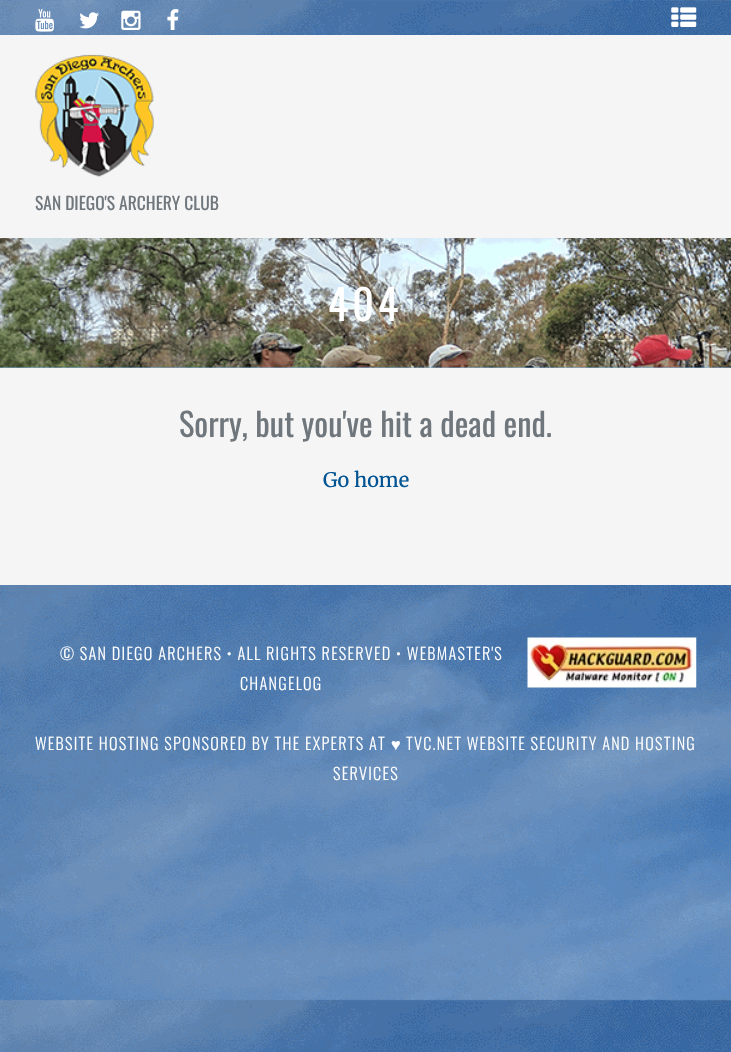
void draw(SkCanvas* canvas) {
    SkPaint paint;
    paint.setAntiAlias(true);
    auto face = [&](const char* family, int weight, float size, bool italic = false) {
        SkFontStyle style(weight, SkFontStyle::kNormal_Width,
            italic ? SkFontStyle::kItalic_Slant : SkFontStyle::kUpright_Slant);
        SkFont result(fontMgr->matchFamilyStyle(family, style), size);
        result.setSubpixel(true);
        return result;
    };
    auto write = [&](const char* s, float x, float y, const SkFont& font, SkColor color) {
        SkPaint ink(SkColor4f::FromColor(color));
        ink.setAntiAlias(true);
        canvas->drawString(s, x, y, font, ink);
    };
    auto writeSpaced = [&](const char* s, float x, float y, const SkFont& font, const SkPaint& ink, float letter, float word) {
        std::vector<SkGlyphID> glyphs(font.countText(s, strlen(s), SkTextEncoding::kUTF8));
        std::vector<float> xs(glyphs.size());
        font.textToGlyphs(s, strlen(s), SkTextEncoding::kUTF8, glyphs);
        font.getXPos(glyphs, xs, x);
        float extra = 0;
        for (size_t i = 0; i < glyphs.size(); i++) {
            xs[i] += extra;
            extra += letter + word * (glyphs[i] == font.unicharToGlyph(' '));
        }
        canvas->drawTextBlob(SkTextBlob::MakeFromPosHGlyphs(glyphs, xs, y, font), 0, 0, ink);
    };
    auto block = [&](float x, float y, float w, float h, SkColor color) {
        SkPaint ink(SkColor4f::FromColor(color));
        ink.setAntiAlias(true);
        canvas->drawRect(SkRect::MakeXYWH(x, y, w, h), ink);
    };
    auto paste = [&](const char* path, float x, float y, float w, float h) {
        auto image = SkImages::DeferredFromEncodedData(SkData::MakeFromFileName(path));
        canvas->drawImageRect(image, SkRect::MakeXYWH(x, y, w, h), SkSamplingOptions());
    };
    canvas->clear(SK_ColorWHITE);
    paste("pic1.png", 0, 0, 731, 1052);
    paste("pic2.png", 35, 9, 19, 23);
    paste("pic3.png", 79, 12, 20, 17);
    paste("pic4.png", 121, 10, 20, 20);
    paste("pic5.png", 167, 9, 12, 21);
    block(0, 35, 731, 203, SkColorSetRGB(245, 245, 246));
    paste("pic6.png", 671, 7, 26, 20);
    paste("pic7.png", 35, 54, 119, 123);
    auto kFont1 = face("Oswald", 400, 17.5f);
    write("SAN DIEGO'S ARCHERY CLUB", 35, 210, kFont1, SkColorSetRGB(112, 119, 124));
    block(0, 368, 731, 217, SkColorSetRGB(245, 245, 246));
    block(0, 367, 731, 1, SkColorSetRGB(123, 180, 224));
    paste("pic8.png", 0, 238, 731, 130);
    auto kFont2 = face("Oswald", 400, 42);
    paint.setColor(SK_ColorWHITE);
    writeSpaced("404", 328, 321, kFont2, paint, 4, 0);
    auto kFont3 = face("Oswald", 400, 32.5f);
    write("Sorry, but you've hit a dead end.", 179, 437, kFont3, SkColorSetRGB(112, 119, 124));
    auto kFont4 = face("Merriweather", 400, 20);
    write("Go home", 323, 487, kFont4, SkColorSetRGB(0, 84, 147));
    auto kFont5 = face("Oswald", 300, 16.25f);
    writeSpaced("© SAN DIEGO ARCHERS • ALL RIGHTS RESERVED • WEBMASTER'S", 60, 660, kFont5, paint, 1.25f, 0);
    paste("pic9.png", 527, 637, 170, 51);
    writeSpaced("CHANGELOG", 240, 690, kFont5, paint, 1.25f, 0);
    writeSpaced("WEBSITE HOSTING SPONSORED BY THE EXPERTS AT", 35, 750, kFont5, paint, 1.25f, 0);
    auto kFont6 = face("Liberation Sans", 400, 16.25f);
    writeSpaced("♥", 391, 750, kFont6, paint, 1.25f, 0);
    writeSpaced("TVC.NET WEBSITE SECURITY AND HOSTING", 406, 750, kFont5, paint, 1.25f, 0);
    writeSpaced("SERVICES", 333, 780, kFont5, paint, 1.25f, 0);
}
